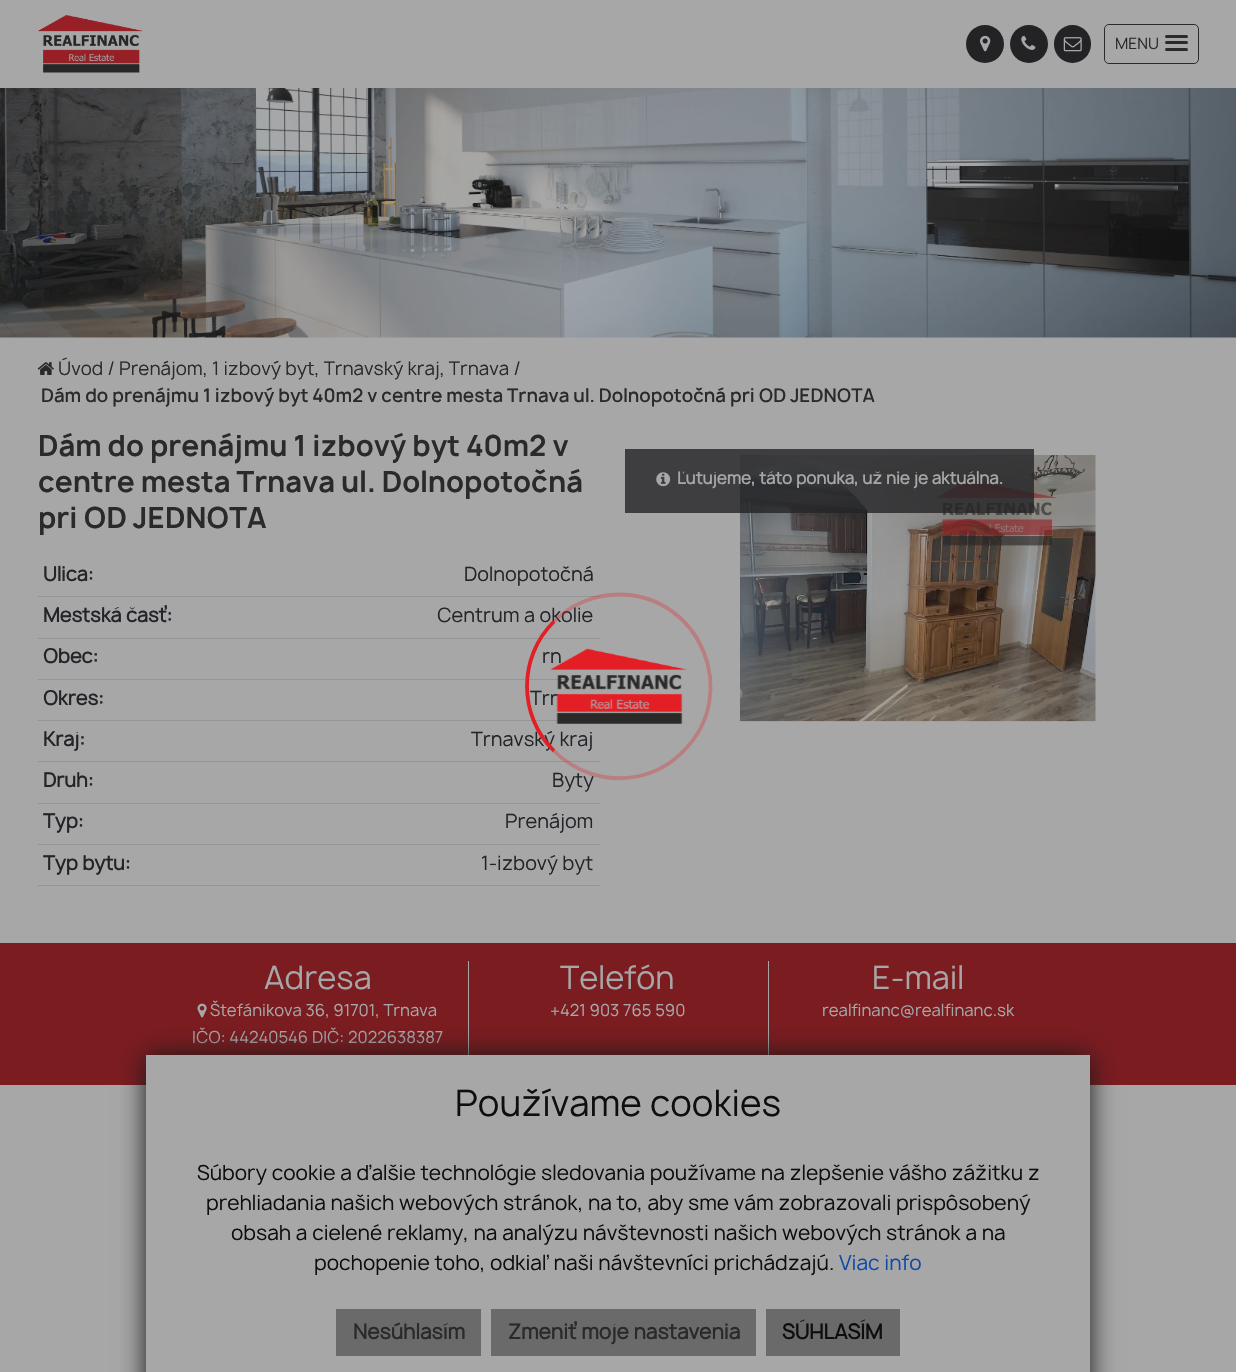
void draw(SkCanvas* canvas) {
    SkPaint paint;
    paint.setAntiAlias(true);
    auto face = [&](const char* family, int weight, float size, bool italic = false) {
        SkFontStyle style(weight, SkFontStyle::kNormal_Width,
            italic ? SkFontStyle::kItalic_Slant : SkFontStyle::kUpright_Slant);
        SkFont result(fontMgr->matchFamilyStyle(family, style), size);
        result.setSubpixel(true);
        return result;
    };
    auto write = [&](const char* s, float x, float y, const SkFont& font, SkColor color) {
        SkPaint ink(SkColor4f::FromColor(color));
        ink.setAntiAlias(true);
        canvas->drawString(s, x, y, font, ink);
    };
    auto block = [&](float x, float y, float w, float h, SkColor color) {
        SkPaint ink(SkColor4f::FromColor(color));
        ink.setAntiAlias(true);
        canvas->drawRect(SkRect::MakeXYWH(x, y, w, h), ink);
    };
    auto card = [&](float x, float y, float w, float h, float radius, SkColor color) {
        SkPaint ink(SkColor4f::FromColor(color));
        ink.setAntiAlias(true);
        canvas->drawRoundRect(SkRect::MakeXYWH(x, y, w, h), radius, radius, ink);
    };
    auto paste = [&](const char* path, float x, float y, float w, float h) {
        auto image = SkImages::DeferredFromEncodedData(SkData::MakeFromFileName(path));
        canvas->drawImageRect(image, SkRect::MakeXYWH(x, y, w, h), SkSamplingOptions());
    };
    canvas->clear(SkColorSetRGB(167, 167, 168));
    paste("pic1.png", 37, 15, 107, 58);
    paint.setColor(SkColorSetRGB(35, 35, 37));
    canvas->drawCircle(985, 44, 19, paint);
    paste("pic2.png", 980, 35, 11, 17);
    canvas->drawCircle(1029, 44, 19, paint);
    paste("pic3.png", 1021, 35, 15, 15);
    card(1054, 25, 37, 38, 18.5f, SkColorSetRGB(35, 35, 37));
    paste("pic4.png", 1063, 37, 19, 15);
    paint.setStyle(SkPaint::kStroke_Style);
    paint.setStrokeWidth(1);
    paint.setColor(SkColorSetRGB(42, 42, 42));
    canvas->drawRoundRect(SkRect::MakeXYWH(1104.5f, 24.5f, 94, 39), 4.5f, 4.5f, paint);
    auto kFont1 = face("Manrope", 400, 15);
    write("MENU", 1115, 49, kFont1, SkColorSetRGB(42, 42, 42));
    card(1165, 35, 23, 3, 1.5f, SkColorSetRGB(42, 42, 42));
    card(1165, 41, 23, 3, 1.5f, SkColorSetRGB(42, 42, 42));
    card(1165, 48, 23, 3, 1.5f, SkColorSetRGB(42, 42, 42));
    paste("pic5.png", 0, 88, 1236, 250);
    paste("pic6.png", 37, 362, 17, 13);
    auto kFont2 = face("Manrope", 400, 18);
    write("Úvod / Prenájom, 1 izbový byt, Trnavský kraj, Trnava /", 58, 375, kFont2, SkColorSetRGB(42, 42, 42));
    auto kFont3 = face("Manrope", 600, 18);
    write("Dám do prenájmu 1 izbový byt 40m2 v centre mesta Trnava ul. Dolnopotočná pri OD JEDNOTA", 41, 402, kFont3, SkColorSetRGB(42, 42, 42));
    auto kFont4 = face("Manrope", 700, 28);
    write("Dám do prenájmu 1 izbový byt 40m2 v", 38, 456, kFont4, SkColorSetRGB(42, 42, 42));
    write("centre mesta Trnava ul. Dolnopotočná", 38, 492, kFont4, SkColorSetRGB(42, 42, 42));
    write("pri OD JEDNOTA", 38, 528, kFont4, SkColorSetRGB(42, 42, 42));
    block(38, 596, 562, 1, SkColorSetRGB(147, 150, 153));
    auto kFont5 = face("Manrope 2", 700, 19);
    write("Ulica:", 43, 581, kFont5, SkColorSetRGB(34, 36, 39));
    auto kFont6 = face("Manrope", 400, 19);
    write("Dolnopotočná", 464, 581, kFont6, SkColorSetRGB(34, 36, 39));
    block(38, 638, 562, 1, SkColorSetRGB(147, 150, 153));
    write("Mestská časť:", 43, 622, kFont5, SkColorSetRGB(34, 36, 39));
    write("Centrum a okolie", 437, 622, kFont6, SkColorSetRGB(34, 36, 39));
    block(38, 679, 562, 1, SkColorSetRGB(147, 150, 153));
    write("Obec:", 43, 663, kFont5, SkColorSetRGB(34, 36, 39));
    write("rn", 542, 663, kFont6, SkColorSetRGB(34, 36, 39));
    block(38, 720, 520, 1, SkColorSetRGB(147, 150, 153));
    write("Okres:", 43, 705, kFont5, SkColorSetRGB(34, 36, 39));
    write("Trn", 530, 705, kFont6, SkColorSetRGB(34, 36, 39));
    block(38, 761, 562, 1, SkColorSetRGB(147, 150, 153));
    write("Kraj:", 43, 746, kFont5, SkColorSetRGB(34, 36, 39));
    write("Trnavský kraj", 471, 746, kFont6, SkColorSetRGB(34, 36, 39));
    block(38, 803, 562, 1, SkColorSetRGB(147, 150, 153));
    write("Druh:", 43, 787, kFont5, SkColorSetRGB(34, 36, 39));
    write("Byty", 552, 787, kFont6, SkColorSetRGB(34, 36, 39));
    block(38, 844, 562, 1, SkColorSetRGB(147, 150, 153));
    write("Typ:", 43, 828, kFont5, SkColorSetRGB(34, 36, 39));
    write("Prenájom", 505, 828, kFont6, SkColorSetRGB(34, 36, 39));
    block(38, 885, 562, 1, SkColorSetRGB(147, 150, 153));
    write("Typ bytu:", 43, 870, kFont5, SkColorSetRGB(34, 36, 39));
    write("1-izbový byt", 481, 870, kFont6, SkColorSetRGB(34, 36, 39));
    paste("pic7.png", 740, 455, 356, 267);
    block(625, 449, 409, 64, SkColorSetARGB(204, 35, 35, 37));
    paste("pic8.png", 656, 472, 15, 15);
    auto kFont7 = face("Manrope 2", 700, 16.2f);
    write("Ľutujeme, táto ponuka, už nie je aktuálna.", 677, 484, kFont7, SkColorSetRGB(167, 167, 168));
    block(0, 943, 1236, 142, SkColorSetRGB(123, 28, 32));
    block(468, 961, 1, 94, SkColorSetRGB(167, 167, 168));
    auto kFont8 = face("Manrope", 400, 31);
    write("Adresa", 264, 989, kFont8, SkColorSetRGB(167, 167, 168));
    paste("pic9.png", 197, 1003, 10, 15);
    auto kFont9 = face("Manrope", 400, 16);
    write("Štefánikova 36, 91701, Trnava", 210, 1016, kFont9, SkColorSetRGB(167, 167, 168));
    write("IČO: 44240546 DIČ: 2022638387", 192, 1043, kFont9, SkColorSetRGB(167, 167, 168));
    block(768, 961, 1, 94, SkColorSetRGB(167, 167, 168));
    write("Telefón", 560, 989, kFont8, SkColorSetRGB(167, 167, 168));
    write("+421 903 765 590", 550, 1016, kFont9, SkColorSetRGB(167, 167, 168));
    write("E-mail", 872, 989, kFont8, SkColorSetRGB(167, 167, 168));
    write("realfinanc@realfinanc.sk", 822, 1016, kFont9, SkColorSetRGB(167, 167, 168));
    paint.setStrokeWidth(3.8f);
    paint.setColor(SkColorSetARGB(77, 225, 31, 36));
    canvas->drawPath(SkPathBuilder().moveTo(554, 621.5f).cubicTo(571, 604, 594.5f, 594.5f, 619, 594.5f).cubicTo(700, 594.5f, 741.5f, 693.5f, 683.5f, 751).cubicTo(671, 764, 654.5f, 773, 637, 776.5f).cubicTo(607, 782.5f, 575.5f, 772.5f, 554, 751).detach(), paint);
    paint.setColor(SkColorSetRGB(225, 31, 36));
    canvas->drawPath(SkPathBuilder().moveTo(554, 751).cubicTo(518, 715.5f, 518, 657, 554, 621.5f).detach(), paint);
    paste("pic10.png", 550, 648, 138, 76);
    paint.setStyle(SkPaint::kFill_Style);
    paint.setColor(SkColorSetRGB(24, 24, 25));
    paint.setMaskFilter(SkMaskFilter::MakeBlur(kNormal_SkBlurStyle, 12.5f));
    canvas->drawRect(SkRect::MakeXYWH(146, 1055, 944, 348), paint);
    paint.setMaskFilter(nullptr);
    block(146, 1055, 944, 317, SkColorSetRGB(167, 167, 168));
    auto kFont10 = face("Manrope", 400, 35);
    write("Používame cookies", 455, 1116, kFont10, SkColorSetRGB(14, 14, 15));
    auto kFont11 = face("Manrope", 400, 20);
    write("Súbory cookie a ďalšie technológie sledovania používame na zlepšenie vášho zážitku z", 197, 1180, kFont11, SkColorSetRGB(14, 14, 15));
    write("prehliadania našich webových stránok, na to, aby sme vám zobrazovali prispôsobený", 206, 1210, kFont11, SkColorSetRGB(14, 14, 15));
    write("obsah a cielené reklamy, na analýzu návštevnosti našich webových stránok a na", 231, 1240, kFont11, SkColorSetRGB(14, 14, 15));
    write("pochopenie toho, odkiaľ naši návštevníci prichádzajú.", 314, 1270, kFont11, SkColorSetRGB(14, 14, 15));
    write("Viac info", 839, 1270, kFont11, SkColorSetRGB(14, 75, 168));
    block(336, 1309, 145, 47, SkColorSetRGB(106, 106, 107));
    auto kFont12 = face("Manrope 2", 700, 20);
    write("Nesúhlasím", 353, 1339, kFont12, SkColorSetRGB(42, 42, 42));
    block(491, 1309, 265, 47, SkColorSetRGB(106, 106, 107));
    write("Zmeniť moje nastavenia", 508, 1339, kFont12, SkColorSetRGB(42, 42, 42));
    block(766, 1309, 134, 47, SkColorSetRGB(106, 106, 107));
    write("SÚHLASÍM", 782, 1339, kFont12, SkColorSetRGB(14, 14, 15));
}
